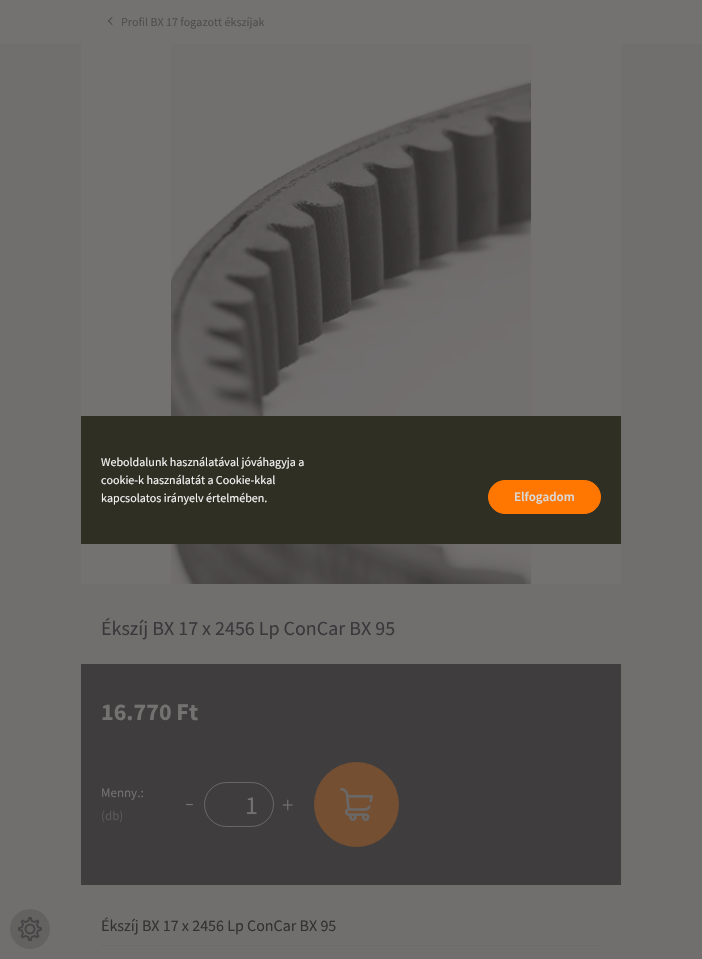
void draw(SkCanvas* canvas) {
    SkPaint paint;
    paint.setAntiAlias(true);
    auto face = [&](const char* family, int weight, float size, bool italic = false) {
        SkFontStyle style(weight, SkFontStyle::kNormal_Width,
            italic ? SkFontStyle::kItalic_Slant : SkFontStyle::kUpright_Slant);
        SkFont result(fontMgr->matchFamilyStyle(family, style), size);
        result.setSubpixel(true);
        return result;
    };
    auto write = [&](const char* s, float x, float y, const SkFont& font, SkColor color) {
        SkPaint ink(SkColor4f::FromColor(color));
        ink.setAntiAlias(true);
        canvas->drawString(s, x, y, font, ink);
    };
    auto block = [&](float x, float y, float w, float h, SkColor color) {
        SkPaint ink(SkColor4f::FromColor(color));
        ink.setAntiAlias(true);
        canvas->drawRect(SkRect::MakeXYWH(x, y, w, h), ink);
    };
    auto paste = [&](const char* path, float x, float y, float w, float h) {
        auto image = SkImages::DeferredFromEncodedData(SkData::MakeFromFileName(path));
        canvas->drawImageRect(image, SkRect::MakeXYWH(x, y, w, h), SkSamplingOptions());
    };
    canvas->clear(SkColorSetRGB(116, 113, 113));
    paint.setColor(SkColorSetRGB(57, 56, 58));
    canvas->drawPath(SkPathBuilder().moveTo(112.5f, 24.5f).lineTo(112, 25).lineTo(108, 21).lineTo(108.5f, 20.5f).close().detach(), paint);
    canvas->drawPath(SkPathBuilder().moveTo(112.5f, 17.5f).lineTo(108.5f, 21.5f).lineTo(108, 21).lineTo(112, 17).close().detach(), paint);
    auto kFont1 = face("Source Sans Pro", 400, 12);
    write("Profil BX 17 fogazott ékszíjak", 121, 26, kFont1, SkColorSetRGB(80, 77, 77));
    block(0, 44, 702, 915, SkColorSetRGB(113, 110, 110));
    block(81, 44, 540, 540, SkColorSetRGB(116, 113, 113));
    paste("pic1.png", 170, 44, 362, 540);
    auto kFont2 = face("Source Sans Pro", 400, 20);
    write("Ékszíj BX 17 x 2456 Lp ConCar BX 95", 101, 635, kFont2, SkColorSetRGB(57, 56, 58));
    block(81, 664, 540, 221, SkColorSetRGB(64, 61, 62));
    auto kFont3 = face("Source Sans Pro", 700, 24);
    write("16.770 Ft", 101, 720, kFont3, SkColorSetRGB(116, 113, 113));
    auto kFont4 = face("Source Sans Pro", 400, 13);
    write("Menny.:", 101, 797, kFont4, SkColorSetRGB(116, 113, 113));
    auto kFont5 = face("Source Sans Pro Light", 300, 30);
    write("-", 185, 812, kFont5, SkColorSetRGB(116, 113, 113));
    paint.setStyle(SkPaint::kStroke_Style);
    paint.setStrokeWidth(1);
    paint.setColor(SkColorSetRGB(105, 102, 102));
    canvas->drawRoundRect(SkRect::MakeXYWH(204.5f, 782.5f, 69, 44), 22, 22, paint);
    auto kFont6 = face("Source Sans Pro", 400, 26);
    write("1", 245, 814, kFont6, SkColorSetRGB(116, 113, 113));
    auto kFont7 = face("Source Sans Pro Light", 300, 24);
    write("+", 282, 813, kFont7, SkColorSetRGB(116, 113, 113));
    write("(db)", 101, 820, kFont4, SkColorSetRGB(91, 88, 88));
    paint.setStyle(SkPaint::kFill_Style);
    paint.setColor(SkColorSetRGB(116, 79, 49));
    canvas->drawCircle(356.5f, 804.5f, 42, paint);
    paint.setStyle(SkPaint::kStroke_Style);
    canvas->drawCircle(356.5f, 804.5f, 42, paint);
    paste("pic2.png", 340, 788, 33, 33);
    auto kFont8 = face("Source Sans Pro", 400, 16);
    write("Ékszíj BX 17 x 2456 Lp ConCar BX 95", 101, 931, kFont8, SkColorSetRGB(52, 49, 49));
    block(101, 945, 501, 1, SkColorSetRGB(109, 106, 106));
    block(81, 416, 540, 128, SkColorSetRGB(48, 47, 36));
    write("Weboldalunk használatával jóváhagyja a", 101, 466, kFont1, SkColorSetRGB(245, 245, 245));
    write("cookie-k használatát a Cookie-kkal", 101, 484, kFont1, SkColorSetRGB(245, 245, 245));
    write("kapcsolatos irányelv értelmében.", 101, 502, kFont1, SkColorSetRGB(245, 245, 245));
    paint.setStyle(SkPaint::kFill_Style);
    paint.setColor(SkColorSetRGB(255, 119, 0));
    canvas->drawRoundRect(SkRect::MakeXYWH(488.5f, 480.5f, 112, 33), 16.5f, 16.5f, paint);
    paint.setStyle(SkPaint::kStroke_Style);
    canvas->drawRoundRect(SkRect::MakeXYWH(488.5f, 480.5f, 112, 33), 16.5f, 16.5f, paint);
    auto kFont9 = face("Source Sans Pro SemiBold", 600, 13);
    write("Elfogadom", 514, 501, kFont9, SkColorSetRGB(217, 217, 217));
    paint.setStyle(SkPaint::kFill_Style);
    paint.setColor(SkColorSetRGB(100, 97, 97));
    canvas->drawCircle(30, 929, 20, paint);
    paste("pic3.png", 18, 917, 24, 24);
}
